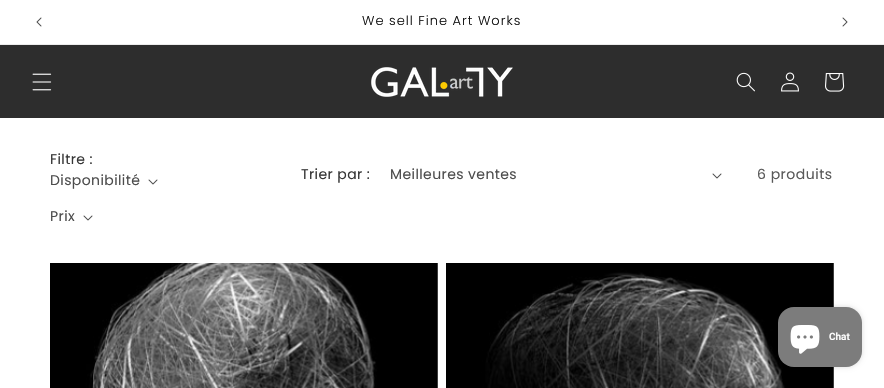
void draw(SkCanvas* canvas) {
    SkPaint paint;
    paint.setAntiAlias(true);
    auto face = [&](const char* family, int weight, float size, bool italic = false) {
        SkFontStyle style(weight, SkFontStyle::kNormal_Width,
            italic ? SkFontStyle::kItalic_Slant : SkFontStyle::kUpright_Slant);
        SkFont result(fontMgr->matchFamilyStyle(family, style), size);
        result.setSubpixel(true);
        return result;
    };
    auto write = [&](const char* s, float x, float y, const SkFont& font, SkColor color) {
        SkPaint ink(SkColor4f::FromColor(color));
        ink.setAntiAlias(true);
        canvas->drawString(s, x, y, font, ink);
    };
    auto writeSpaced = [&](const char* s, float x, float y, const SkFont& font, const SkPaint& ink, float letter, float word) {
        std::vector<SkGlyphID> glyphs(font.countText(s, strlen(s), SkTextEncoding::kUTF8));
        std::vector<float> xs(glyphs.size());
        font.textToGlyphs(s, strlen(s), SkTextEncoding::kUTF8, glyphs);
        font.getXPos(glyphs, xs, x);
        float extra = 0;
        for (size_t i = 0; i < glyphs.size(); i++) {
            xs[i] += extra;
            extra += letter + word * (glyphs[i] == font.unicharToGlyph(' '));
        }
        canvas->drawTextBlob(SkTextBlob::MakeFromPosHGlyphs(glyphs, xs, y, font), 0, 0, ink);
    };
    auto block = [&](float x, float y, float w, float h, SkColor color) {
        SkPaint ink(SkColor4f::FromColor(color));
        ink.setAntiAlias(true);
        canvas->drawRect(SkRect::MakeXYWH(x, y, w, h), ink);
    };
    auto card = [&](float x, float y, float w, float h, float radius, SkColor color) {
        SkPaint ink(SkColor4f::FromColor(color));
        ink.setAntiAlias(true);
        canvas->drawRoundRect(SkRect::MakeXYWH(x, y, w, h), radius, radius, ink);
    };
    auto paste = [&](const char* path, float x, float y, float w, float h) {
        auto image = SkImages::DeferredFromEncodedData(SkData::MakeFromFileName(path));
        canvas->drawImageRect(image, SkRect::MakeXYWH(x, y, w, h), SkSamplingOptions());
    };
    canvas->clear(SK_ColorWHITE);
    block(0, 44, 884, 1, SkColorSetRGB(236, 236, 236));
    paste("pic1.png", 36, 17, 6, 10);
    auto kFont1 = face("Poppins", 300, 13);
    paint.setColor(SkColorSetRGB(18, 18, 18));
    writeSpaced("We sell Fine Art Works", 362, 25, kFont1, paint, 1, 0);
    paste("pic2.png", 842, 17, 6, 10);
    block(0, 45, 884, 73, SkColorSetRGB(45, 45, 45));
    paste("pic3.png", 32, 73, 20, 18);
    paste("pic4.png", 371, 67, 142, 30);
    paste("pic5.png", 736, 72, 19, 20);
    paste("pic6.png", 781, 72, 18, 20);
    paste("pic7.png", 825, 73, 20, 19);
    auto kFont2 = face("Poppins", 400, 14);
    paint.setColor(SkColorSetRGB(54, 54, 54));
    writeSpaced("Filtre :", 50, 164, kFont2, paint, 0.4f, 0);
    paint.setColor(SkColorSetRGB(77, 77, 77));
    writeSpaced("Disponibilité", 50, 185, kFont2, paint, 0.4f, 0);
    paste("pic8.png", 148, 179, 10, 6);
    writeSpaced("Prix", 50, 221, kFont2, paint, 0.4f, 0);
    paste("pic8.png", 83, 215, 10, 6);
    paint.setColor(SkColorSetRGB(54, 54, 54));
    writeSpaced("Trier par :", 301, 179, kFont2, paint, 0.4f, 0);
    paint.setColor(SkColorSetRGB(77, 77, 77));
    writeSpaced("Meilleures ventes", 390, 179, kFont2, paint, 0.4f, 0);
    paste("pic8.png", 712, 173, 10, 6);
    paint.setColor(SkColorSetRGB(89, 89, 89));
    writeSpaced("6 produits", 757, 179, kFont2, paint, 0.5f, 0);
    paste("pic9.png", 50, 263, 388, 125);
    paste("pic10.png", 446, 263, 388, 125);
    paint.setColor(SkColorSetARGB(38, 0, 0, 0));
    paint.setMaskFilter(SkMaskFilter::MakeBlur(kNormal_SkBlurStyle, 2.5f));
    canvas->drawRoundRect(SkRect::MakeXYWH(778, 307, 84, 60), 16, 16, paint);
    paint.setMaskFilter(nullptr);
    card(778, 307, 84, 60, 16, SkColorSetRGB(124, 124, 124));
    paste("pic11.png", 790, 325, 30, 29);
    auto kFont3 = face("Roboto", 600, 10);
    write("Chat", 829, 340, kFont3, SK_ColorWHITE);
}
